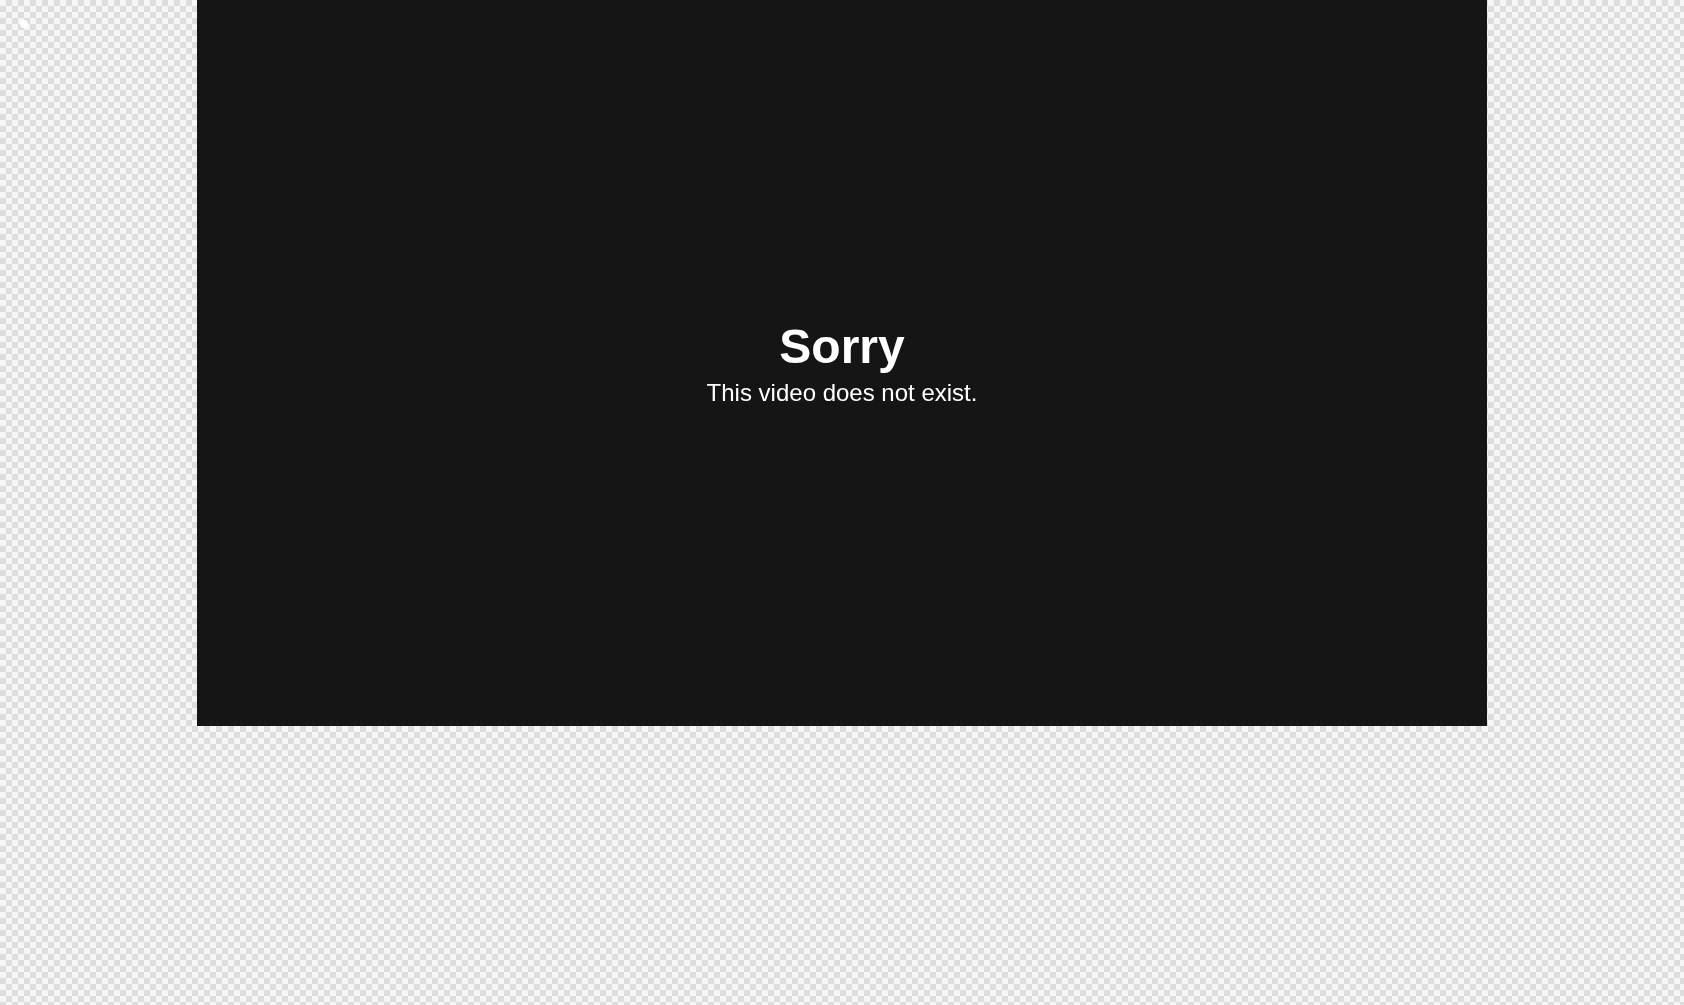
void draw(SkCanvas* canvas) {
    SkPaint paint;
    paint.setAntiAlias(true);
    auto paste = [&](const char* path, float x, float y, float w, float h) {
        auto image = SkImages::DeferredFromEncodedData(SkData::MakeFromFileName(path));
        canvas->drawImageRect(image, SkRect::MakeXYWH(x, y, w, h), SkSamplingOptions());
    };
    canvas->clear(SK_ColorWHITE);
    paste("pic1.png", 0, 0, 1684, 1005);
    paint.setColor(SK_ColorWHITE);
    canvas->drawCircle(24, 24, 4, paint);
    paste("pic2.png", 197, 0, 1290, 726);
}
